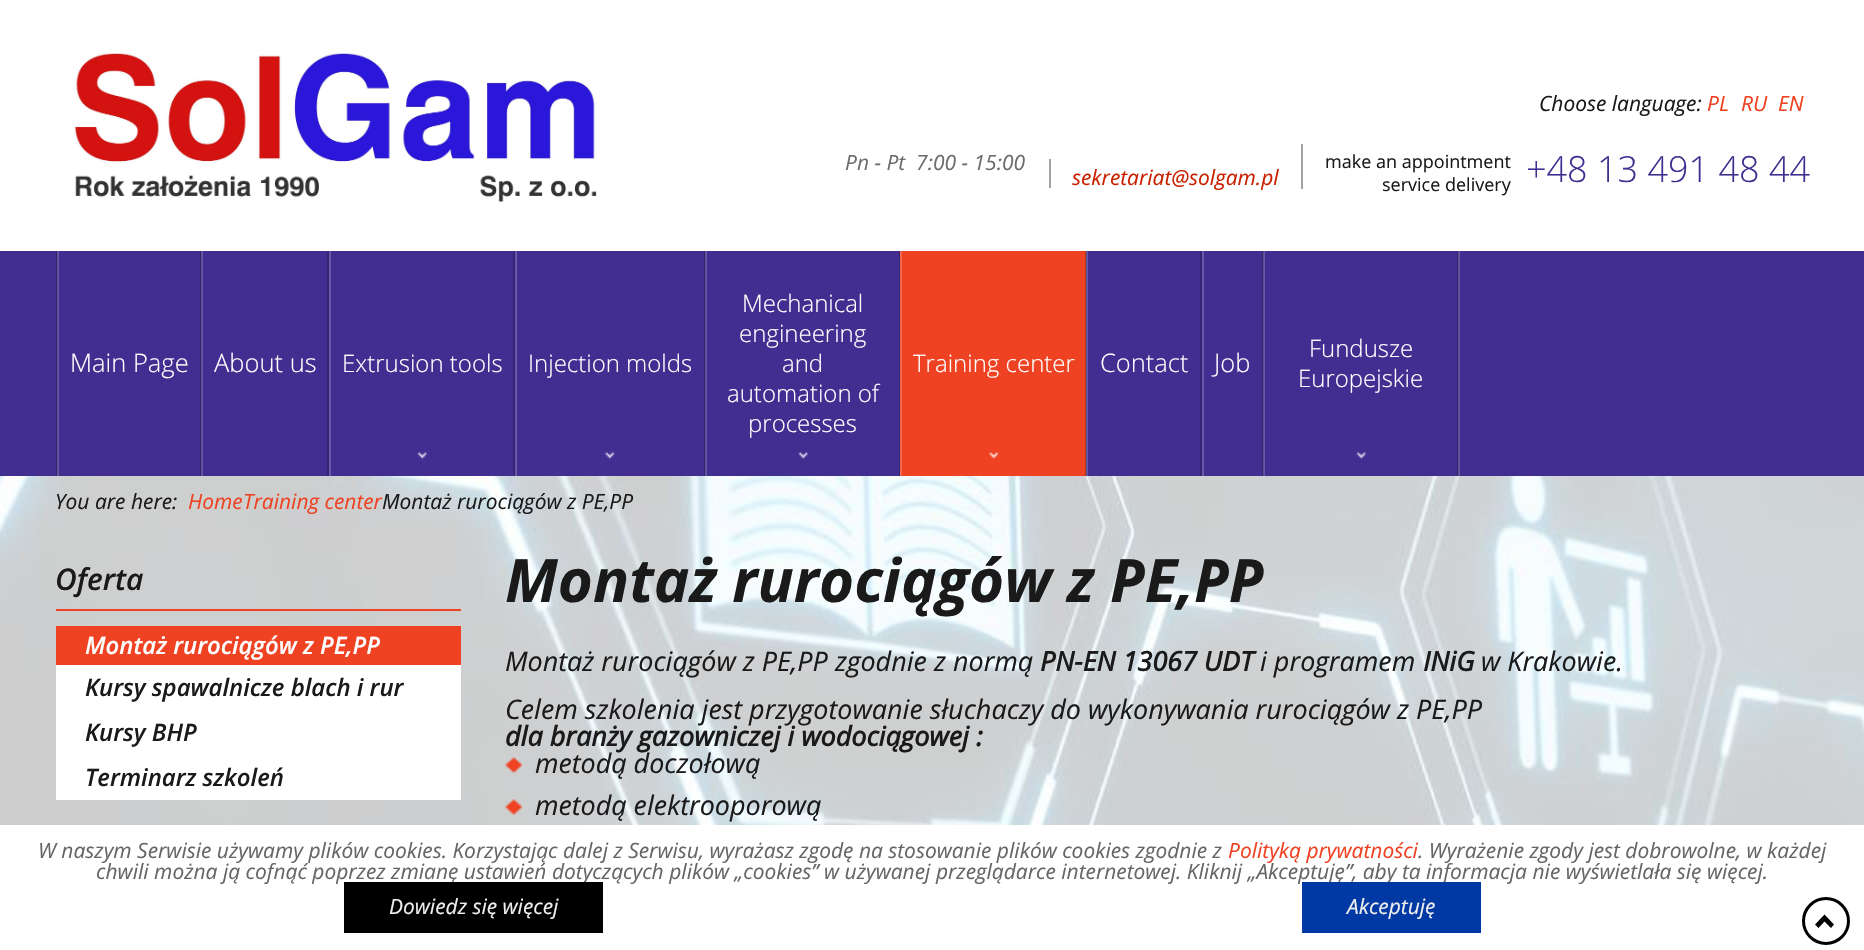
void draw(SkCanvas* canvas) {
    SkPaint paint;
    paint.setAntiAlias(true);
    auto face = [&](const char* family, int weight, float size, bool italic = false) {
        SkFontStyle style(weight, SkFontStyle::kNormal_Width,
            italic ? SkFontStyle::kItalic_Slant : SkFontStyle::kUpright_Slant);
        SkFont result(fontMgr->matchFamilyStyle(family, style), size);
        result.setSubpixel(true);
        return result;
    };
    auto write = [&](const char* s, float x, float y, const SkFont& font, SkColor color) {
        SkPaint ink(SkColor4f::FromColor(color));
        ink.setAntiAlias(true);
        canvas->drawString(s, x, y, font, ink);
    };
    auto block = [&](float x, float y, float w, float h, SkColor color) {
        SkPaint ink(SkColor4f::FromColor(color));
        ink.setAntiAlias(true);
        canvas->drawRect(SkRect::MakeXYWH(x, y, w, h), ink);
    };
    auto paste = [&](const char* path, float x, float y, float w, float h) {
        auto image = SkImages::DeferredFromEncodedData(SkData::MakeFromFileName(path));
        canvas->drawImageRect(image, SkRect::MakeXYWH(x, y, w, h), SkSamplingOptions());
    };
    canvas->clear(SK_ColorWHITE);
    paste("pic1.png", 0, 476, 1864, 349);
    paste("pic2.png", 74, 53, 523, 150);
    auto kFont1 = face("Open Sans", 400, 21, true);
    write("Choose language:", 1539, 111, kFont1, SkColorSetRGB(26, 26, 26));
    write("PL", 1707, 111, kFont1, SkColorSetRGB(238, 66, 34));
    write("RU", 1741, 111, kFont1, SkColorSetRGB(238, 66, 34));
    write("EN", 1778, 111, kFont1, SkColorSetRGB(238, 66, 34));
    write("Pn - Pt  7:00 - 15:00", 845, 170, kFont1, SkColorSetRGB(108, 108, 108));
    block(1049, 159, 2, 29, SkColorSetRGB(162, 162, 162));
    write("sekretariat@solgam.pl", 1072, 185, kFont1, SkColorSetRGB(201, 33, 0));
    block(1301, 144, 2, 45, SkColorSetRGB(162, 162, 162));
    auto kFont2 = face("Open Sans", 400, 18);
    write("make an appointment", 1325, 168, kFont2, SkColorSetRGB(26, 26, 26));
    write("service delivery", 1382, 191, kFont2, SkColorSetRGB(26, 26, 26));
    auto kFont3 = face("Open Sans", 300, 36);
    write("+48 13 491 48 44", 1526, 182, kFont3, SkColorSetRGB(66, 46, 145));
    block(0, 251, 1864, 225, SkColorSetRGB(66, 46, 145));
    block(56, 251, 2, 225, SkColorSetRGB(53, 37, 116));
    block(200, 251, 2, 225, SkColorSetRGB(53, 37, 116));
    block(57, 251, 2, 225, SkColorSetARGB(51, 255, 255, 255));
    auto kFont4 = face("Open Sans", 300, 25.5f);
    write("Main Page", 70, 372, kFont4, SK_ColorWHITE);
    block(327, 251, 2, 225, SkColorSetRGB(53, 37, 116));
    block(201, 251, 2, 225, SkColorSetARGB(51, 255, 255, 255));
    write("About us", 214, 372, kFont4, SK_ColorWHITE);
    paste("pic3.png", 417, 451, 11, 9);
    block(513, 251, 2, 225, SkColorSetRGB(53, 37, 116));
    block(329, 251, 2, 225, SkColorSetRGB(104, 88, 167));
    auto kFont5 = face("Open Sans", 300, 24);
    write("Extrusion tools", 342, 372, kFont5, SK_ColorWHITE);
    paste("pic4.png", 604, 451, 11, 9);
    block(704, 251, 2, 225, SkColorSetRGB(53, 37, 116));
    block(515, 251, 2, 225, SkColorSetRGB(104, 88, 167));
    write("Injection molds", 528, 372, kFont5, SK_ColorWHITE);
    paste("pic5.png", 798, 451, 11, 9);
    block(899, 251, 1, 225, SkColorSetRGB(53, 37, 116));
    block(705, 251, 2, 225, SkColorSetARGB(51, 255, 255, 255));
    write("Mechanical", 742, 312, kFont5, SK_ColorWHITE);
    write("engineering", 739, 342, kFont5, SK_ColorWHITE);
    write("and", 782, 372, kFont5, SK_ColorWHITE);
    write("automation of", 727, 402, kFont5, SK_ColorWHITE);
    write("processes", 748, 432, kFont5, SK_ColorWHITE);
    block(902, 251, 184, 225, SkColorSetRGB(238, 66, 34));
    paste("pic6.png", 988, 451, 11, 9);
    block(1085, 251, 2, 225, SkColorSetARGB(51, 0, 0, 0));
    block(900, 251, 2, 225, SkColorSetRGB(241, 104, 78));
    write("Training center", 913, 372, kFont5, SK_ColorWHITE);
    block(1200, 251, 2, 225, SkColorSetRGB(53, 37, 116));
    block(1086, 251, 2, 225, SkColorSetARGB(51, 255, 255, 255));
    write("Contact", 1100, 372, kFont4, SK_ColorWHITE);
    block(1262, 251, 2, 225, SkColorSetRGB(53, 37, 116));
    block(1202, 251, 2, 225, SkColorSetRGB(104, 88, 167));
    write("Job", 1214, 372, kFont4, SK_ColorWHITE);
    paste("pic3.png", 1356, 451, 11, 9);
    block(1457, 251, 2, 225, SkColorSetRGB(53, 37, 116));
    block(1263, 251, 2, 225, SkColorSetARGB(51, 255, 255, 255));
    write("Fundusze", 1309, 357, kFont5, SK_ColorWHITE);
    write("Europejskie", 1298, 387, kFont5, SK_ColorWHITE);
    block(1458, 251, 2, 225, SkColorSetARGB(51, 255, 255, 255));
    write("You are here:", 55, 509, kFont1, SkColorSetRGB(26, 26, 26));
    write("Home", 188, 509, kFont1, SkColorSetRGB(238, 66, 34));
    write("Training center", 243, 509, kFont1, SkColorSetRGB(238, 66, 34));
    write("Montaż rurociągów z PE,PP", 382, 509, kFont1, SkColorSetRGB(26, 26, 26));
    block(56, 609, 405, 2, SkColorSetRGB(238, 66, 34));
    auto kFont6 = face("Open Sans", 600, 30, true);
    write("Oferta", 55, 590, kFont6, SkColorSetRGB(26, 26, 26));
    block(56, 665, 405, 135, SK_ColorWHITE);
    block(56, 626, 405, 39, SkColorSetRGB(238, 66, 34));
    auto kFont7 = face("Open Sans", 600, 24, true);
    write("Montaż rurociągów z PE,PP", 85, 654, kFont7, SK_ColorWHITE);
    write("Kursy spawalnicze blach i rur", 85, 696, kFont7, SkColorSetRGB(26, 26, 26));
    write("Kursy BHP", 85, 741, kFont7, SkColorSetRGB(26, 26, 26));
    write("Terminarz szkoleń", 85, 786, kFont7, SkColorSetRGB(26, 26, 26));
    auto kFont8 = face("Open Sans", 700, 60, true);
    write("Montaż rurociągów z PE,PP", 505, 602, kFont8, SkColorSetRGB(26, 26, 26));
    auto kFont9 = face("Open Sans", 400, 27, true);
    write("Montaż rurociągów z PE,PP zgodnie z normą", 505, 671, kFont9, SkColorSetRGB(26, 26, 26));
    auto kFont10 = face("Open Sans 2", 700, 27, true);
    write("PN-EN 13067 UDT", 1040, 671, kFont10, SkColorSetRGB(26, 26, 26));
    write("i programem", 1260, 671, kFont9, SkColorSetRGB(26, 26, 26));
    write("INiG", 1423, 671, kFont10, SkColorSetRGB(26, 26, 26));
    write("w Krakowie.", 1481, 671, kFont9, SkColorSetRGB(26, 26, 26));
    write("Celem szkolenia jest przygotowanie słuchaczy do wykonywania rurociągów z PE,PP", 505, 719, kFont9, SkColorSetRGB(26, 26, 26));
    write("dla branży gazowniczej i wodociągowej :", 505, 746, kFont10, SkColorSetRGB(26, 26, 26));
    paste("pic7.png", 505, 757, 17, 16);
    write("metodą doczołową", 535, 773, kFont9, SkColorSetRGB(26, 26, 26));
    paste("pic8.png", 505, 799, 17, 16);
    write("metodą elektrooporową", 535, 815, kFont9, SkColorSetRGB(26, 26, 26));
    paint.setStyle(SkPaint::kStroke_Style);
    paint.setStrokeWidth(3);
    paint.setColor(SK_ColorBLACK);
    canvas->drawCircle(1826, 921, 22.5f, paint);
    paint.setStyle(SkPaint::kFill_Style);
    canvas->drawPath(SkPathBuilder().moveTo(1834, 924.5f).lineTo(1831, 928).lineTo(1824.5f, 921.5f).lineTo(1818.5f, 928).lineTo(1815, 924.5f).lineTo(1824.5f, 914.5f).close().detach(), paint);
    write("W naszym Serwisie używamy plików cookies. Korzystając dalej z Serwisu, wyrażasz zgodę na stosowanie plików cookies zgodnie z", 38, 858, kFont1, SkColorSetRGB(102, 102, 102));
    write("Polityką prywatności", 1228, 858, kFont1, SkColorSetRGB(238, 66, 34));
    write(". Wyrażenie zgody jest dobrowolne, w każdej", 1418, 858, kFont1, SkColorSetRGB(102, 102, 102));
    write("chwili można ją cofnąć poprzez zmianę ustawień dotyczących plików „cookies” w używanej przeglądarce internetowej. Kliknij „Akceptuję”, aby ta informacja nie wyświetlała się więcej.", 96, 879, kFont1, SkColorSetRGB(102, 102, 102));
    block(344, 882, 259, 51, SK_ColorBLACK);
    write("Dowiedz się więcej", 389, 914, kFont1, SkColorSetRGB(238, 238, 238));
    block(1302, 882, 179, 51, SkColorSetRGB(0, 57, 163));
    write("Akceptuję", 1347, 914, kFont1, SkColorSetRGB(238, 238, 238));
}
